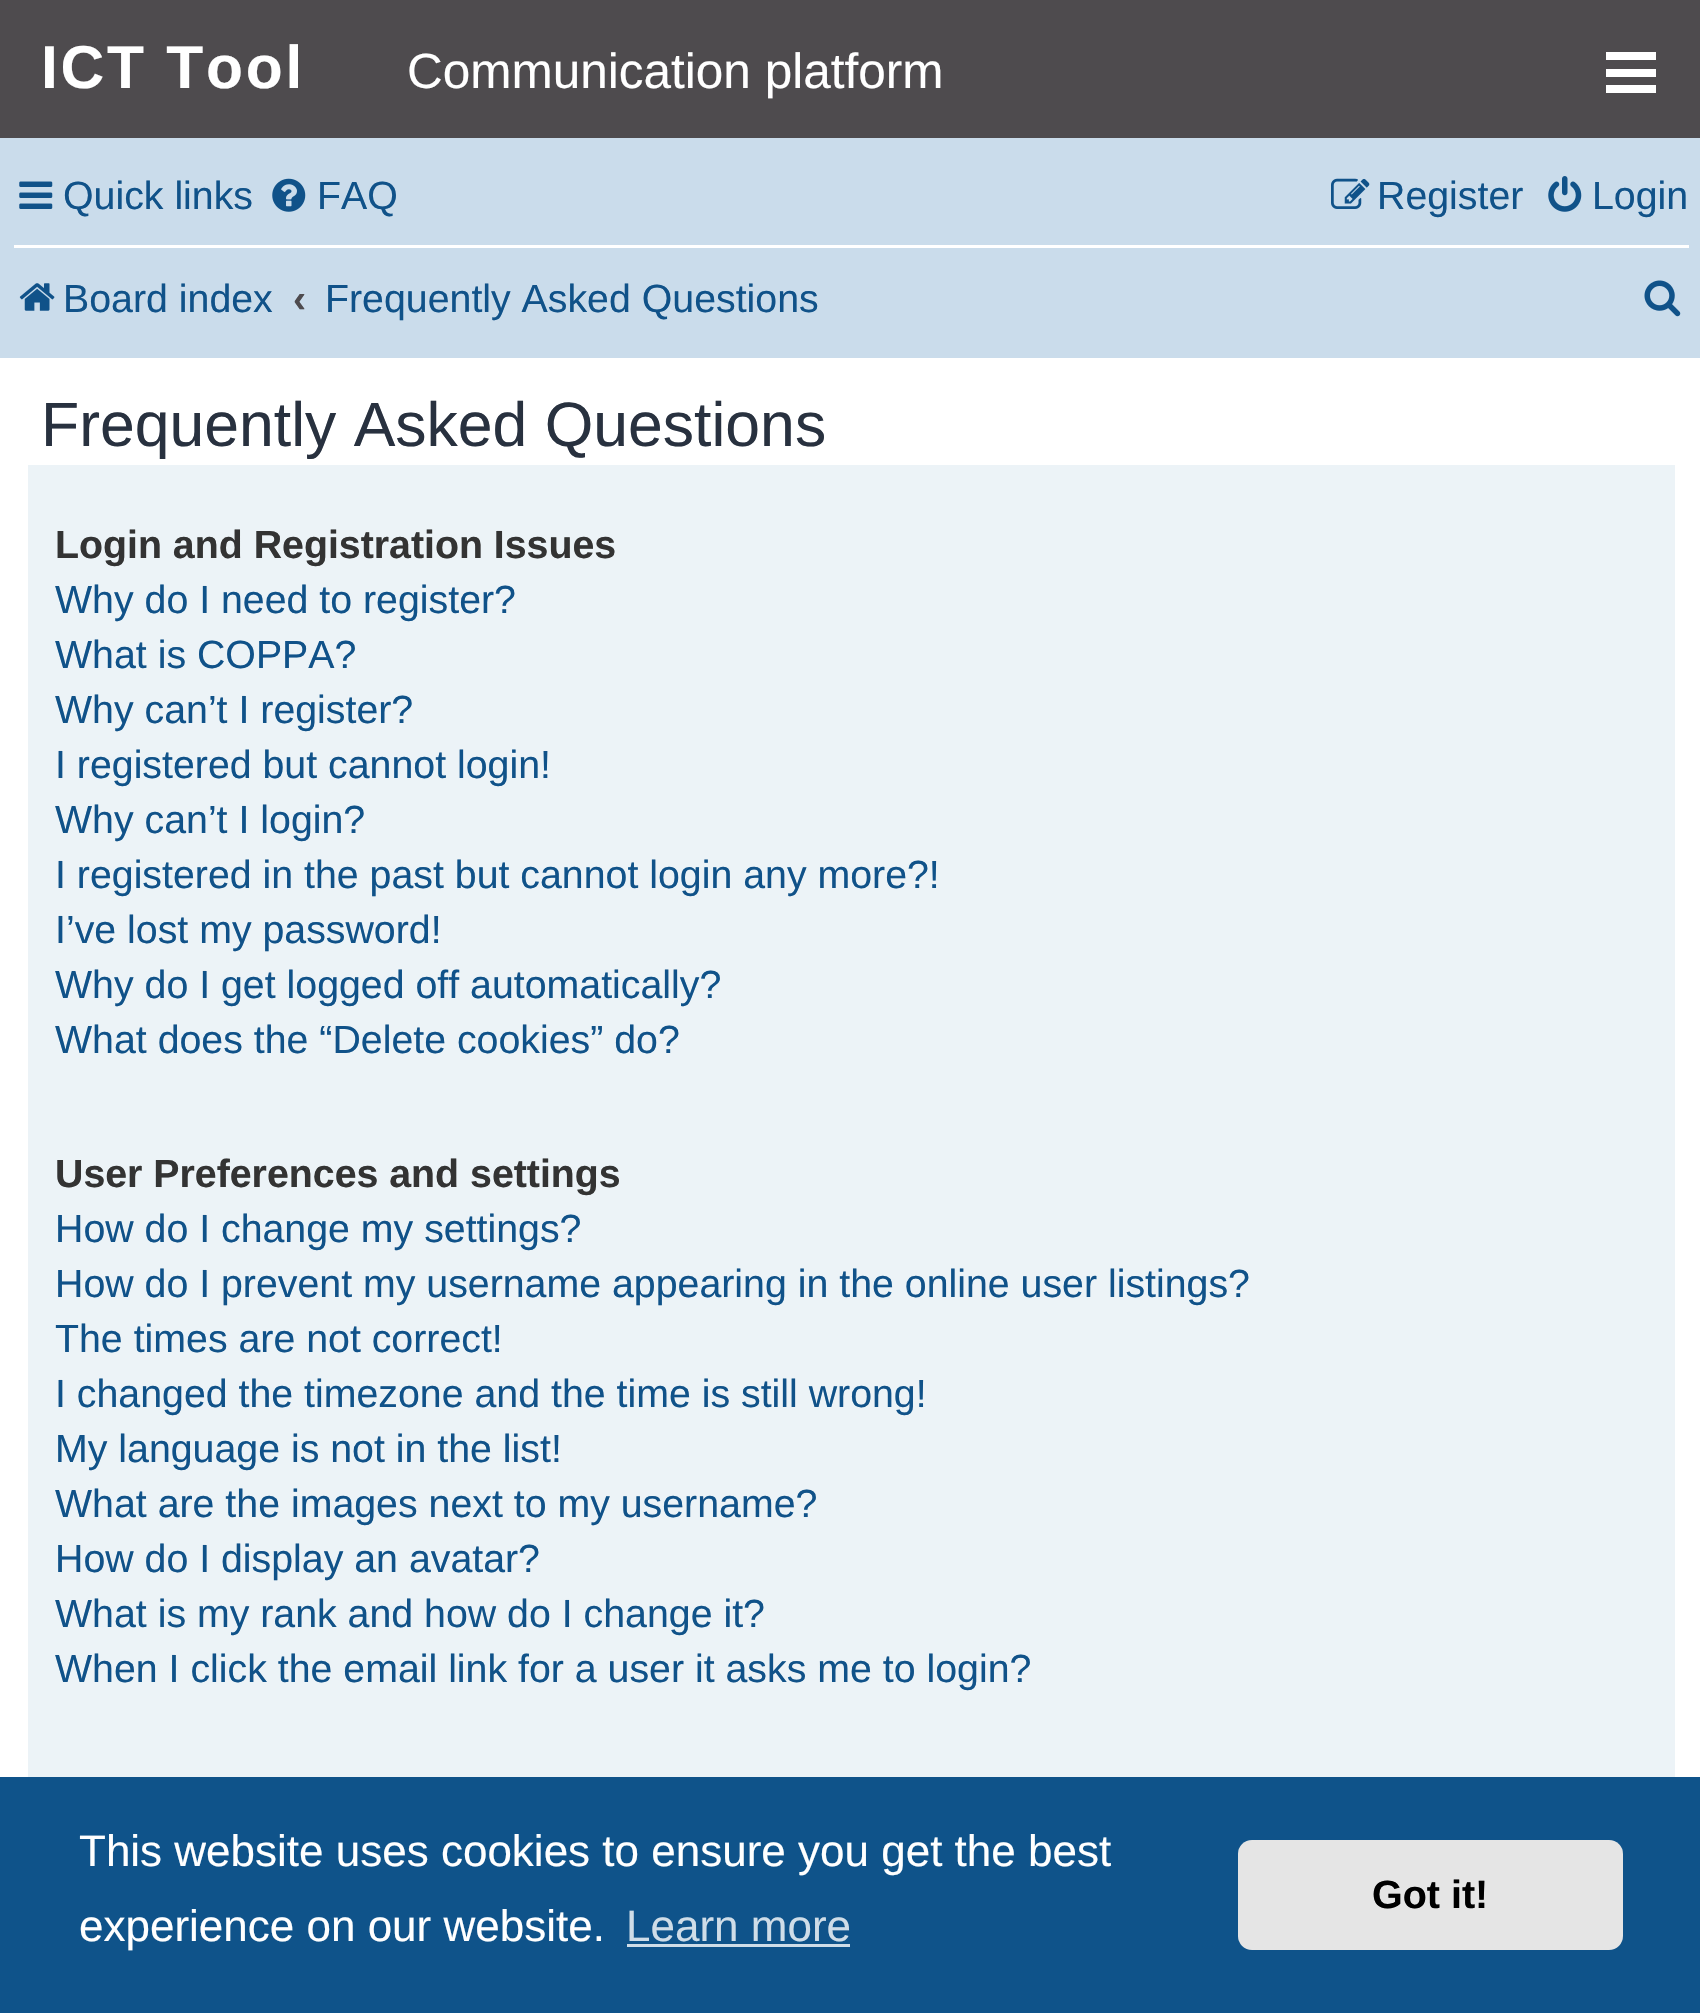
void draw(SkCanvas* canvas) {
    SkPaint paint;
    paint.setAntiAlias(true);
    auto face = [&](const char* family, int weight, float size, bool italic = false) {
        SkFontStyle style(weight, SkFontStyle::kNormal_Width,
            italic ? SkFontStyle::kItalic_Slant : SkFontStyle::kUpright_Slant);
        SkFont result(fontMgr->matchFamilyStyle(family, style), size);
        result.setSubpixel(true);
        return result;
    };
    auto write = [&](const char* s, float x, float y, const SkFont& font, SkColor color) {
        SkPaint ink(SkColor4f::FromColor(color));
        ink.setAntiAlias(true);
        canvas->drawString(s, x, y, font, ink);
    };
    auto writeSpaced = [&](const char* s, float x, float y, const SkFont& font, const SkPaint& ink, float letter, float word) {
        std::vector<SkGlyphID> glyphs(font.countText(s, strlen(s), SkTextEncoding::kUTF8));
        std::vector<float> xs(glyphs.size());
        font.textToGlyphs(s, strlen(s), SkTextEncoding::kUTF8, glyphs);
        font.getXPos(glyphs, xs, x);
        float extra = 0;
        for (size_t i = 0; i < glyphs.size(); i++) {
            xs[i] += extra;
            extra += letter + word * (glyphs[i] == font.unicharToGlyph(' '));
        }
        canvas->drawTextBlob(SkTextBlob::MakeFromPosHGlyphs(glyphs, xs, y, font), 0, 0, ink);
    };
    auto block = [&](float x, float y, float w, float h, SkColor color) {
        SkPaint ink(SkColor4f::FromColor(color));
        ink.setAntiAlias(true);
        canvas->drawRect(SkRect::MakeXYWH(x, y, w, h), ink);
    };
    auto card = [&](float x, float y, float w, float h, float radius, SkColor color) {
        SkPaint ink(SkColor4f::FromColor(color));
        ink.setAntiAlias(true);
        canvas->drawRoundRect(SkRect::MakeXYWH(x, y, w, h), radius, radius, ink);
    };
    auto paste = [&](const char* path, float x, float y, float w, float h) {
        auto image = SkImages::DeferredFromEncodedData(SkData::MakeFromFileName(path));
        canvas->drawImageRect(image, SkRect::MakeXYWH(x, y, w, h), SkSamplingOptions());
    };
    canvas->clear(SK_ColorWHITE);
    block(0, 0, 1700, 138, SkColorSetRGB(78, 75, 78));
    auto kFont1 = face("Liberation Sans", 700, 60.5f);
    paint.setColor(SK_ColorWHITE);
    writeSpaced("ICT Tool", 41, 88, kFont1, paint, 2.75f, 0);
    auto kFont2 = face("Liberation Sans", 400, 49.5f);
    write("Communication platform", 407, 88, kFont2, SK_ColorWHITE);
    block(1606, 69, 50, 8, SK_ColorWHITE);
    block(1606, 52, 50, 8, SK_ColorWHITE);
    block(1606, 85, 50, 8, SK_ColorWHITE);
    block(0, 138, 1700, 220, SkColorSetRGB(202, 220, 235));
    paste("pic1.png", 19, 181, 34, 28);
    auto kFont3 = face("Liberation Sans", 400, 39.3f);
    write("Quick links", 63, 209, kFont3, SkColorSetRGB(16, 82, 137));
    paste("pic2.png", 272, 178, 34, 34);
    write("FAQ", 317, 209, kFont3, SkColorSetRGB(16, 82, 137));
    paste("pic3.png", 1331, 178, 39, 31);
    write("Register", 1377, 209, kFont3, SkColorSetRGB(16, 82, 137));
    paste("pic4.png", 1548, 176, 34, 36);
    write("Login", 1592, 209, kFont3, SkColorSetRGB(16, 82, 137));
    block(14, 245, 1675, 3, SK_ColorWHITE);
    paste("pic5.png", 19, 283, 36, 28);
    write("Board index", 63, 312, kFont3, SkColorSetRGB(16, 82, 137));
    auto kFont4 = face("Liberation Sans", 700, 39.3f);
    write("‹", 293, 312, kFont4, SkColorSetRGB(78, 75, 78));
    write("Frequently Asked Questions", 325, 312, kFont3, SkColorSetRGB(16, 82, 137));
    paste("pic6.png", 1644, 280, 37, 37);
    auto kFont5 = face("Liberation Sans", 400, 62.5f);
    write("Frequently Asked Questions", 41, 446, kFont5, SkColorSetRGB(40, 49, 63));
    block(28, 465, 1647, 1312, SkColorSetRGB(236, 243, 247));
    write("Login and Registration Issues", 55, 558, kFont4, SkColorSetRGB(51, 51, 51));
    write("Why do I need to register?", 55, 613, kFont3, SkColorSetRGB(16, 82, 137));
    write("What is COPPA?", 55, 668, kFont3, SkColorSetRGB(16, 82, 137));
    write("Why can’t I register?", 55, 723, kFont3, SkColorSetRGB(16, 82, 137));
    write("I registered but cannot login!", 55, 778, kFont3, SkColorSetRGB(16, 82, 137));
    write("Why can’t I login?", 55, 833, kFont3, SkColorSetRGB(16, 82, 137));
    write("I registered in the past but cannot login any more?!", 55, 888, kFont3, SkColorSetRGB(16, 82, 137));
    write("I’ve lost my password!", 55, 943, kFont3, SkColorSetRGB(16, 82, 137));
    write("Why do I get logged off automatically?", 55, 998, kFont3, SkColorSetRGB(16, 82, 137));
    write("What does the “Delete cookies” do?", 55, 1053, kFont3, SkColorSetRGB(16, 82, 137));
    write("User Preferences and settings", 55, 1187, kFont4, SkColorSetRGB(51, 51, 51));
    write("How do I change my settings?", 55, 1242, kFont3, SkColorSetRGB(16, 82, 137));
    write("How do I prevent my username appearing in the online user listings?", 55, 1297, kFont3, SkColorSetRGB(16, 82, 137));
    write("The times are not correct!", 55, 1352, kFont3, SkColorSetRGB(16, 82, 137));
    write("I changed the timezone and the time is still wrong!", 55, 1407, kFont3, SkColorSetRGB(16, 82, 137));
    write("My language is not in the list!", 55, 1462, kFont3, SkColorSetRGB(16, 82, 137));
    write("What are the images next to my username?", 55, 1517, kFont3, SkColorSetRGB(16, 82, 137));
    write("How do I display an avatar?", 55, 1572, kFont3, SkColorSetRGB(16, 82, 137));
    write("What is my rank and how do I change it?", 55, 1627, kFont3, SkColorSetRGB(16, 82, 137));
    write("When I click the email link for a user it asks me to login?", 55, 1682, kFont3, SkColorSetRGB(16, 82, 137));
    block(0, 1777, 1700, 236, SkColorSetRGB(15, 83, 138));
    auto kFont6 = face("Liberation Sans", 400, 44);
    write("This website uses cookies to ensure you get the best", 79, 1866, kFont6, SK_ColorWHITE);
    write("experience on our website.", 79, 1941, kFont6, SK_ColorWHITE);
    write("Learn more", 626, 1941, kFont6, SkColorSetRGB(207, 221, 232));
    block(627, 1944, 223, 3, SkColorSetRGB(207, 221, 232));
    card(1238, 1840, 385, 110, 14, SkColorSetRGB(229, 229, 229));
    auto kFont7 = face("Liberation Sans", 700, 39.5f);
    write("Got it!", 1372, 1908, kFont7, SK_ColorBLACK);
}
